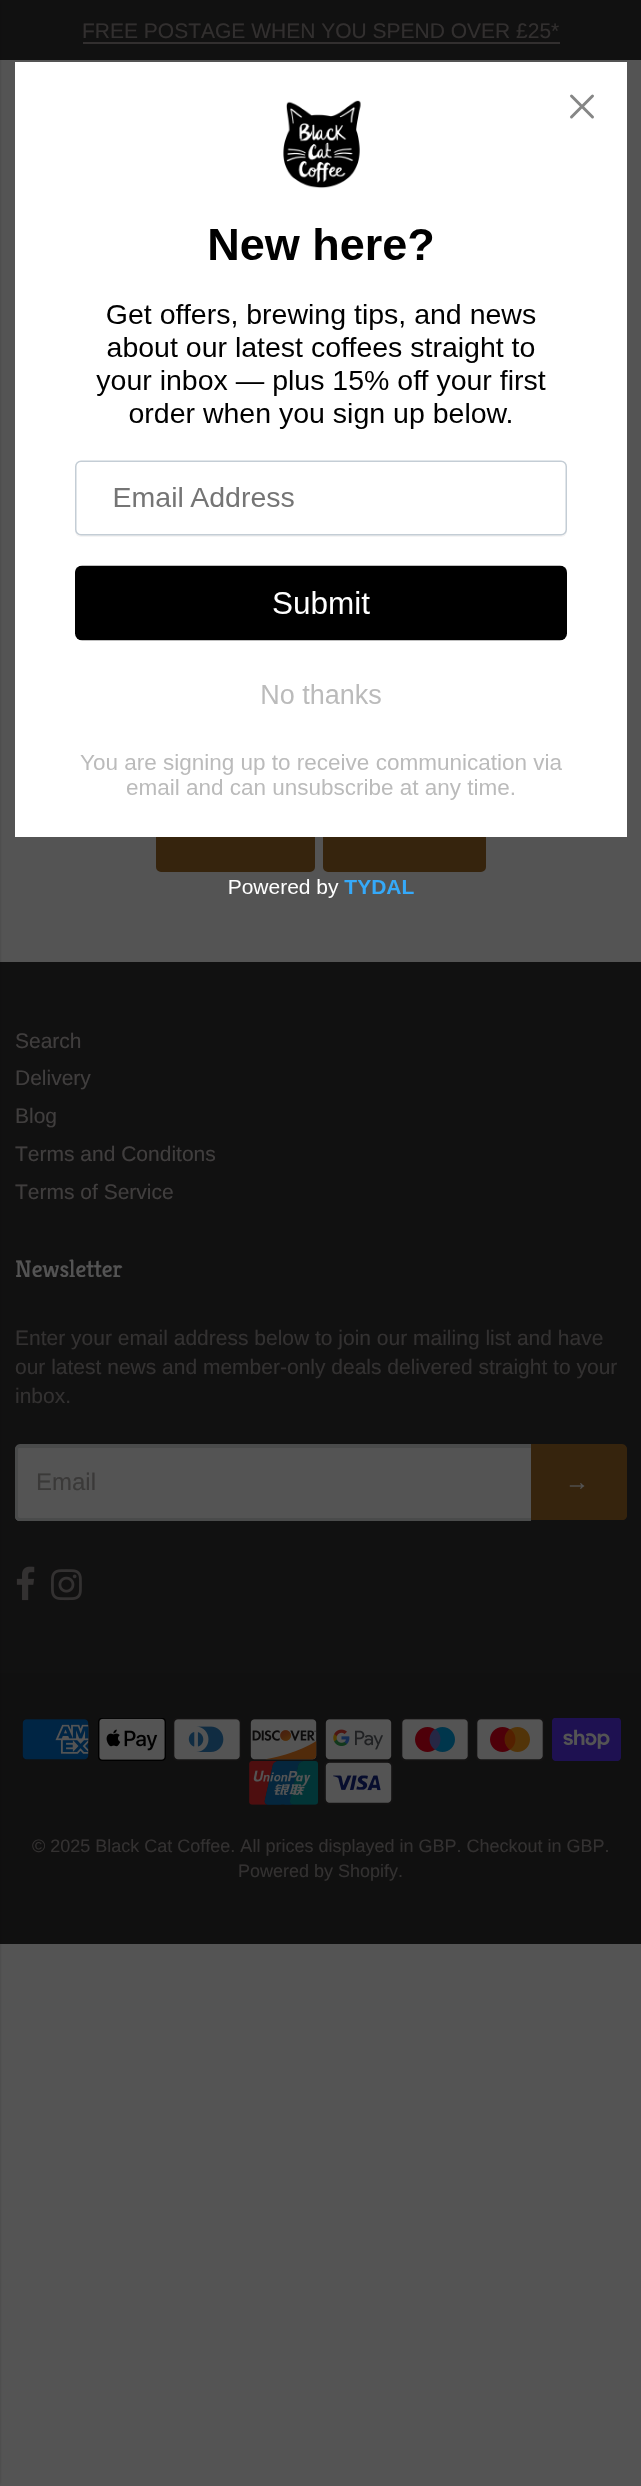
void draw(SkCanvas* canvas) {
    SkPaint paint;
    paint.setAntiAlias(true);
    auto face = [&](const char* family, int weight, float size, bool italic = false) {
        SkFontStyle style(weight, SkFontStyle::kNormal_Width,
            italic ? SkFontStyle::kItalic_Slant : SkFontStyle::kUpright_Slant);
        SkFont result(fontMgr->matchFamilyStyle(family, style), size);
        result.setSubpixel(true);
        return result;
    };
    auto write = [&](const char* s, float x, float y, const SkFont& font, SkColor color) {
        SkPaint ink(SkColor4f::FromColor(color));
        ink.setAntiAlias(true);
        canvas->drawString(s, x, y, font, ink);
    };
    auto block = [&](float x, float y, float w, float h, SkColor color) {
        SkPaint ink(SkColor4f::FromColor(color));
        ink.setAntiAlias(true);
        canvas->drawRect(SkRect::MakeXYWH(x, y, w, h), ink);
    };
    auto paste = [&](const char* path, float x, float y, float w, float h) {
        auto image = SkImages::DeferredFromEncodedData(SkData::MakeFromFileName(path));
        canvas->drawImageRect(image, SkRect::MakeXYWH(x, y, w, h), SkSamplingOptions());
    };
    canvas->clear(SK_ColorWHITE);
    block(0, 0, 641, 60, SkColorSetRGB(51, 49, 50));
    block(0, 962, 641, 711, SkColorSetRGB(51, 49, 50));
    block(0, 1673, 641, 271, SkColorSetRGB(48, 46, 47));
    paint.setColor(SkColorSetARGB(51, 0, 0, 0));
    paint.setMaskFilter(SkMaskFilter::MakeBlur(kNormal_SkBlurStyle, 1.5f));
    canvas->drawRect(SkRect::MakeXYWH(-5, 3, 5, 2481), paint);
    paint.setMaskFilter(nullptr);
    auto kFont1 = face("Liberation Sans", 400, 21);
    write("FREE POSTAGE WHEN YOU SPEND OVER £25*", 82, 38, kFont1, SkColorSetRGB(150, 143, 141));
    block(83, 42, 477, 2, SkColorSetRGB(150, 143, 141));
    paint.setColor(SkColorSetRGB(162, 107, 37));
    canvas->drawRoundRect(SkRect::MakeXYWH(157.5f, 798.5f, 156, 72), 3.5f, 3.5f, paint);
    paint.setStyle(SkPaint::kStroke_Style);
    paint.setStrokeWidth(3);
    canvas->drawRoundRect(SkRect::MakeXYWH(157.5f, 798.5f, 156, 72), 3.5f, 3.5f, paint);
    paint.setStyle(SkPaint::kFill_Style);
    canvas->drawRoundRect(SkRect::MakeXYWH(324.5f, 798.5f, 160, 72), 3.5f, 3.5f, paint);
    paint.setStyle(SkPaint::kStroke_Style);
    canvas->drawRoundRect(SkRect::MakeXYWH(324.5f, 798.5f, 160, 72), 3.5f, 3.5f, paint);
    write("Search", 15, 1048, kFont1, SkColorSetRGB(194, 187, 186));
    write("Delivery", 15, 1085, kFont1, SkColorSetRGB(194, 187, 186));
    write("Blog", 15, 1123, kFont1, SkColorSetRGB(194, 187, 186));
    write("Terms and Conditons", 15, 1161, kFont1, SkColorSetRGB(194, 187, 186));
    write("Terms of Service", 15, 1199, kFont1, SkColorSetRGB(194, 187, 186));
    auto kFont2 = face("Kreon", 400, 24);
    write("Newsletter", 15, 1277, kFont2, SK_ColorWHITE);
    write("Enter your email address below to join our mailing list and have", 15, 1345, kFont1, SkColorSetRGB(153, 148, 147));
    write("our latest news and member-only deals delivered straight to your", 15, 1374, kFont1, SkColorSetRGB(153, 148, 147));
    write("inbox.", 15, 1403, kFont1, SkColorSetRGB(153, 148, 147));
    paint.setStyle(SkPaint::kFill_Style);
    paint.setColor(SK_ColorWHITE);
    canvas->drawPath(SkPathBuilder().moveTo(20, 1445).lineTo(531, 1445).lineTo(531, 1521).lineTo(20, 1521).cubicTo(17, 1521, 15, 1519, 15, 1516).lineTo(15, 1450).cubicTo(15, 1447, 17, 1445, 20, 1445).close().detach(), paint);
    paint.setColor(SkColorSetRGB(225, 227, 228));
    canvas->drawPath(SkPathBuilder(SkPathFillType::kEvenOdd).moveTo(20, 1444).lineTo(531, 1444).lineTo(531, 1521).lineTo(20, 1521).cubicTo(17, 1521, 15, 1519, 15, 1516).lineTo(15, 1449).cubicTo(15, 1447, 17, 1444, 20, 1444).close().moveTo(20, 1448).lineTo(531, 1448).lineTo(531, 1518).lineTo(20, 1518).cubicTo(19, 1518, 18, 1517, 18, 1516).lineTo(18, 1449).cubicTo(18, 1448, 19, 1448, 20, 1448).close().detach(), paint);
    auto kFont3 = face("Liberation Sans", 400, 24);
    write("Email", 36, 1490, kFont3, SkColorSetRGB(175, 171, 170));
    paint.setColor(SkColorSetRGB(162, 107, 37));
    canvas->drawPath(SkPathBuilder().moveTo(531, 1445).lineTo(622, 1445).cubicTo(625, 1445, 627, 1447, 627, 1450).lineTo(627, 1515).cubicTo(627, 1518, 625, 1520, 622, 1520).lineTo(531, 1520).close().detach(), paint);
    canvas->drawPath(SkPathBuilder(SkPathFillType::kEvenOdd).moveTo(531, 1444).lineTo(622, 1444).cubicTo(625, 1444, 627, 1447, 627, 1449).lineTo(627, 1515).cubicTo(627, 1517, 625, 1520, 622, 1520).lineTo(531, 1520).close().moveTo(531, 1448).lineTo(622, 1448).cubicTo(623, 1448, 624, 1448, 624, 1449).lineTo(624, 1515).cubicTo(624, 1516, 623, 1516, 622, 1516).lineTo(531, 1516).close().detach(), paint);
    write("→", 565, 1490, kFont3, SK_ColorWHITE);
    paste("pic2.png", 16, 1566, 19, 35);
    paste("pic3.png", 51, 1569, 31, 32);
    paste("pic4.png", 22, 1719, 67, 41);
    paste("pic5.png", 98, 1718, 68, 43);
    paste("pic6.png", 173, 1718, 68, 43);
    paste("pic7.png", 250, 1719, 67, 41);
    paste("pic8.png", 325, 1719, 67, 41);
    paste("pic9.png", 401, 1718, 68, 43);
    paste("pic10.png", 476, 1718, 68, 43);
    paste("pic11.png", 552, 1718, 69, 43);
    paste("pic12.png", 249, 1761, 69, 44);
    paste("pic13.png", 324, 1761, 69, 44);
    auto kFont4 = face("Liberation Sans", 400, 18);
    write("© 2025 Black Cat Coffee. All prices displayed in GBP. Checkout in GBP.", 32, 1852, kFont4, SkColorSetRGB(153, 148, 147));
    write("Powered by Shopify.", 238, 1877, kFont4, SkColorSetRGB(153, 148, 147));
    paste("pic1.png", 0, 0, 641, 2486);
}
